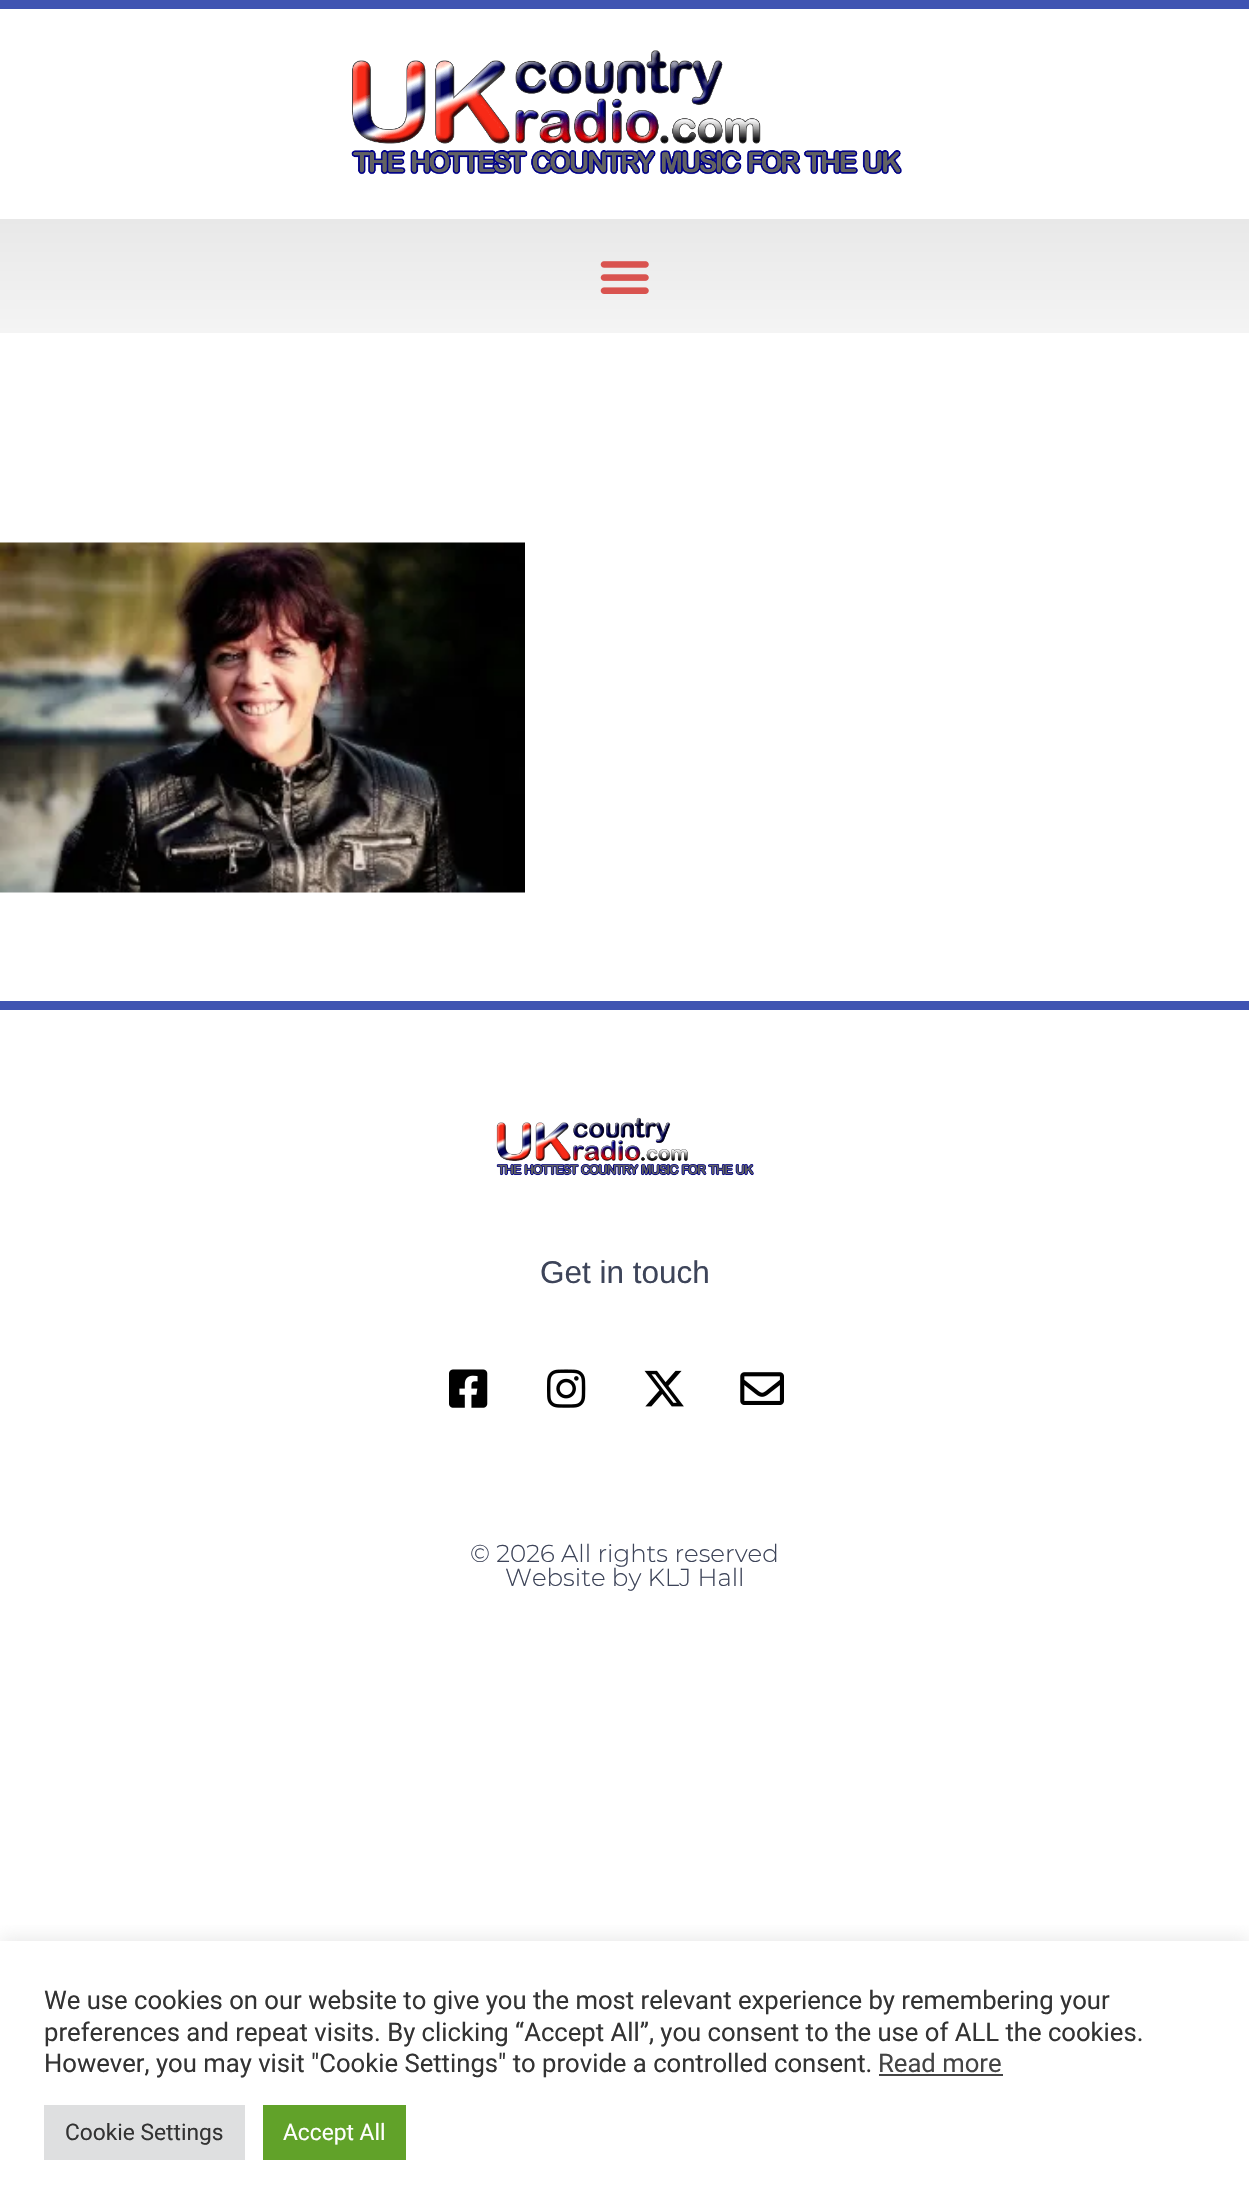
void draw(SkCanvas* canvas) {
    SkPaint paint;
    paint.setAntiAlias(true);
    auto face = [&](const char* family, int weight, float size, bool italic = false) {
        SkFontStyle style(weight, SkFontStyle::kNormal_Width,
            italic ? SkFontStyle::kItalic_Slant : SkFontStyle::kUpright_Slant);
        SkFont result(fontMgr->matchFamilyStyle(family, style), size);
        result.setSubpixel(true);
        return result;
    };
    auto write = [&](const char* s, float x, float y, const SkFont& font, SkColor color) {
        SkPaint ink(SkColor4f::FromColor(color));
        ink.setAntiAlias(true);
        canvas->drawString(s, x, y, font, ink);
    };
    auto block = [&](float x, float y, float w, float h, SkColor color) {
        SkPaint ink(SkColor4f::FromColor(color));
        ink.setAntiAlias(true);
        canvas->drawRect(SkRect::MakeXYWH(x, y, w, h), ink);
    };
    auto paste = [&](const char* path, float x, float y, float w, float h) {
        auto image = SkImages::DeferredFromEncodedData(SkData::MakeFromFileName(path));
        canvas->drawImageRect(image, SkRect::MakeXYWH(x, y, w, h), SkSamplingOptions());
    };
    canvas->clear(SK_ColorWHITE);
    block(0, 0, 1249, 9, SkColorSetRGB(64, 84, 178));
    paste("pic1.png", 351, 50, 551, 125);
    {
        const SkColor colors[] = {SkColorSetRGB(232, 232, 232), SkColorSetRGB(244, 244, 244)};
        const float stops[] = {0, 1};
        const SkPoint ends[] = {{625, 219}, {625, 333}};
        paint.setShader(SkGradientShader::MakeLinear(ends, colors, stops, 2, SkTileMode::kClamp));
        paint.setAlpha(255);
    }
    canvas->drawRect(SkRect::MakeXYWH(0, 219, 1249, 114), paint);
    paste("pic2.png", 600, 261, 49, 33);
    paste("pic3.png", 0, 542, 525, 351);
    block(0, 1001, 1249, 9, SkColorSetRGB(64, 84, 178));
    paste("pic4.png", 496, 1117, 258, 59);
    auto kFont1 = face("Liberation Sans", 400, 31.5f);
    write("Get in touch", 540, 1283, kFont1, SkColorSetRGB(61, 68, 89));
    paste("pic5.png", 449, 1369, 39, 39);
    paste("pic6.png", 547, 1369, 39, 39);
    paste("pic7.png", 644, 1370, 40, 37);
    paste("pic8.png", 740, 1372, 44, 33);
    auto kFont2 = face("Montserrat", 300, 24.5f);
    write("© 2026 All rights reserved", 470, 1562, kFont2, SkColorSetRGB(61, 68, 89));
    write("Website by KLJ Hall", 505, 1586, kFont2, SkColorSetRGB(61, 68, 89));
    canvas->save();
    canvas->clipRect(SkRect::MakeXYWH(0, 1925, 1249, 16));
    paint.setShader(nullptr);
    paint.setColor(SkColorSetARGB(77, 172, 171, 171));
    paint.setMaskFilter(SkMaskFilter::MakeBlur(kNormal_SkBlurStyle, 9));
    canvas->drawRect(SkRect::MakeXYWH(0, 1939, 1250, 271), paint);
    paint.setMaskFilter(nullptr);
    canvas->restore();
    auto kFont3 = face("Roboto", 400, 25.65f);
    write("We use cookies on our website to give you the most relevant experience by remembering your", 44, 2009, kFont3, SkColorSetRGB(51, 51, 51));
    write("preferences and repeat visits. By clicking “Accept All”, you consent to the use of ALL the cookies.", 44, 2041, kFont3, SkColorSetRGB(51, 51, 51));
    write("However, you may visit \"Cookie Settings\" to provide a controlled consent.", 44, 2072, kFont3, SkColorSetRGB(51, 51, 51));
    write("Read more", 878, 2072, kFont3, SkColorSetRGB(68, 68, 68));
    block(879, 2074, 124, 2, SkColorSetRGB(68, 68, 68));
    block(44, 2105, 201, 55, SkColorSetRGB(222, 223, 224));
    auto kFont4 = face("Roboto", 400, 22.75f);
    write("Cookie Settings", 65, 2140, kFont4, SkColorSetRGB(51, 51, 51));
    block(263, 2105, 143, 55, SkColorSetRGB(97, 162, 41));
    write("Accept All", 283, 2140, kFont4, SK_ColorWHITE);
}
